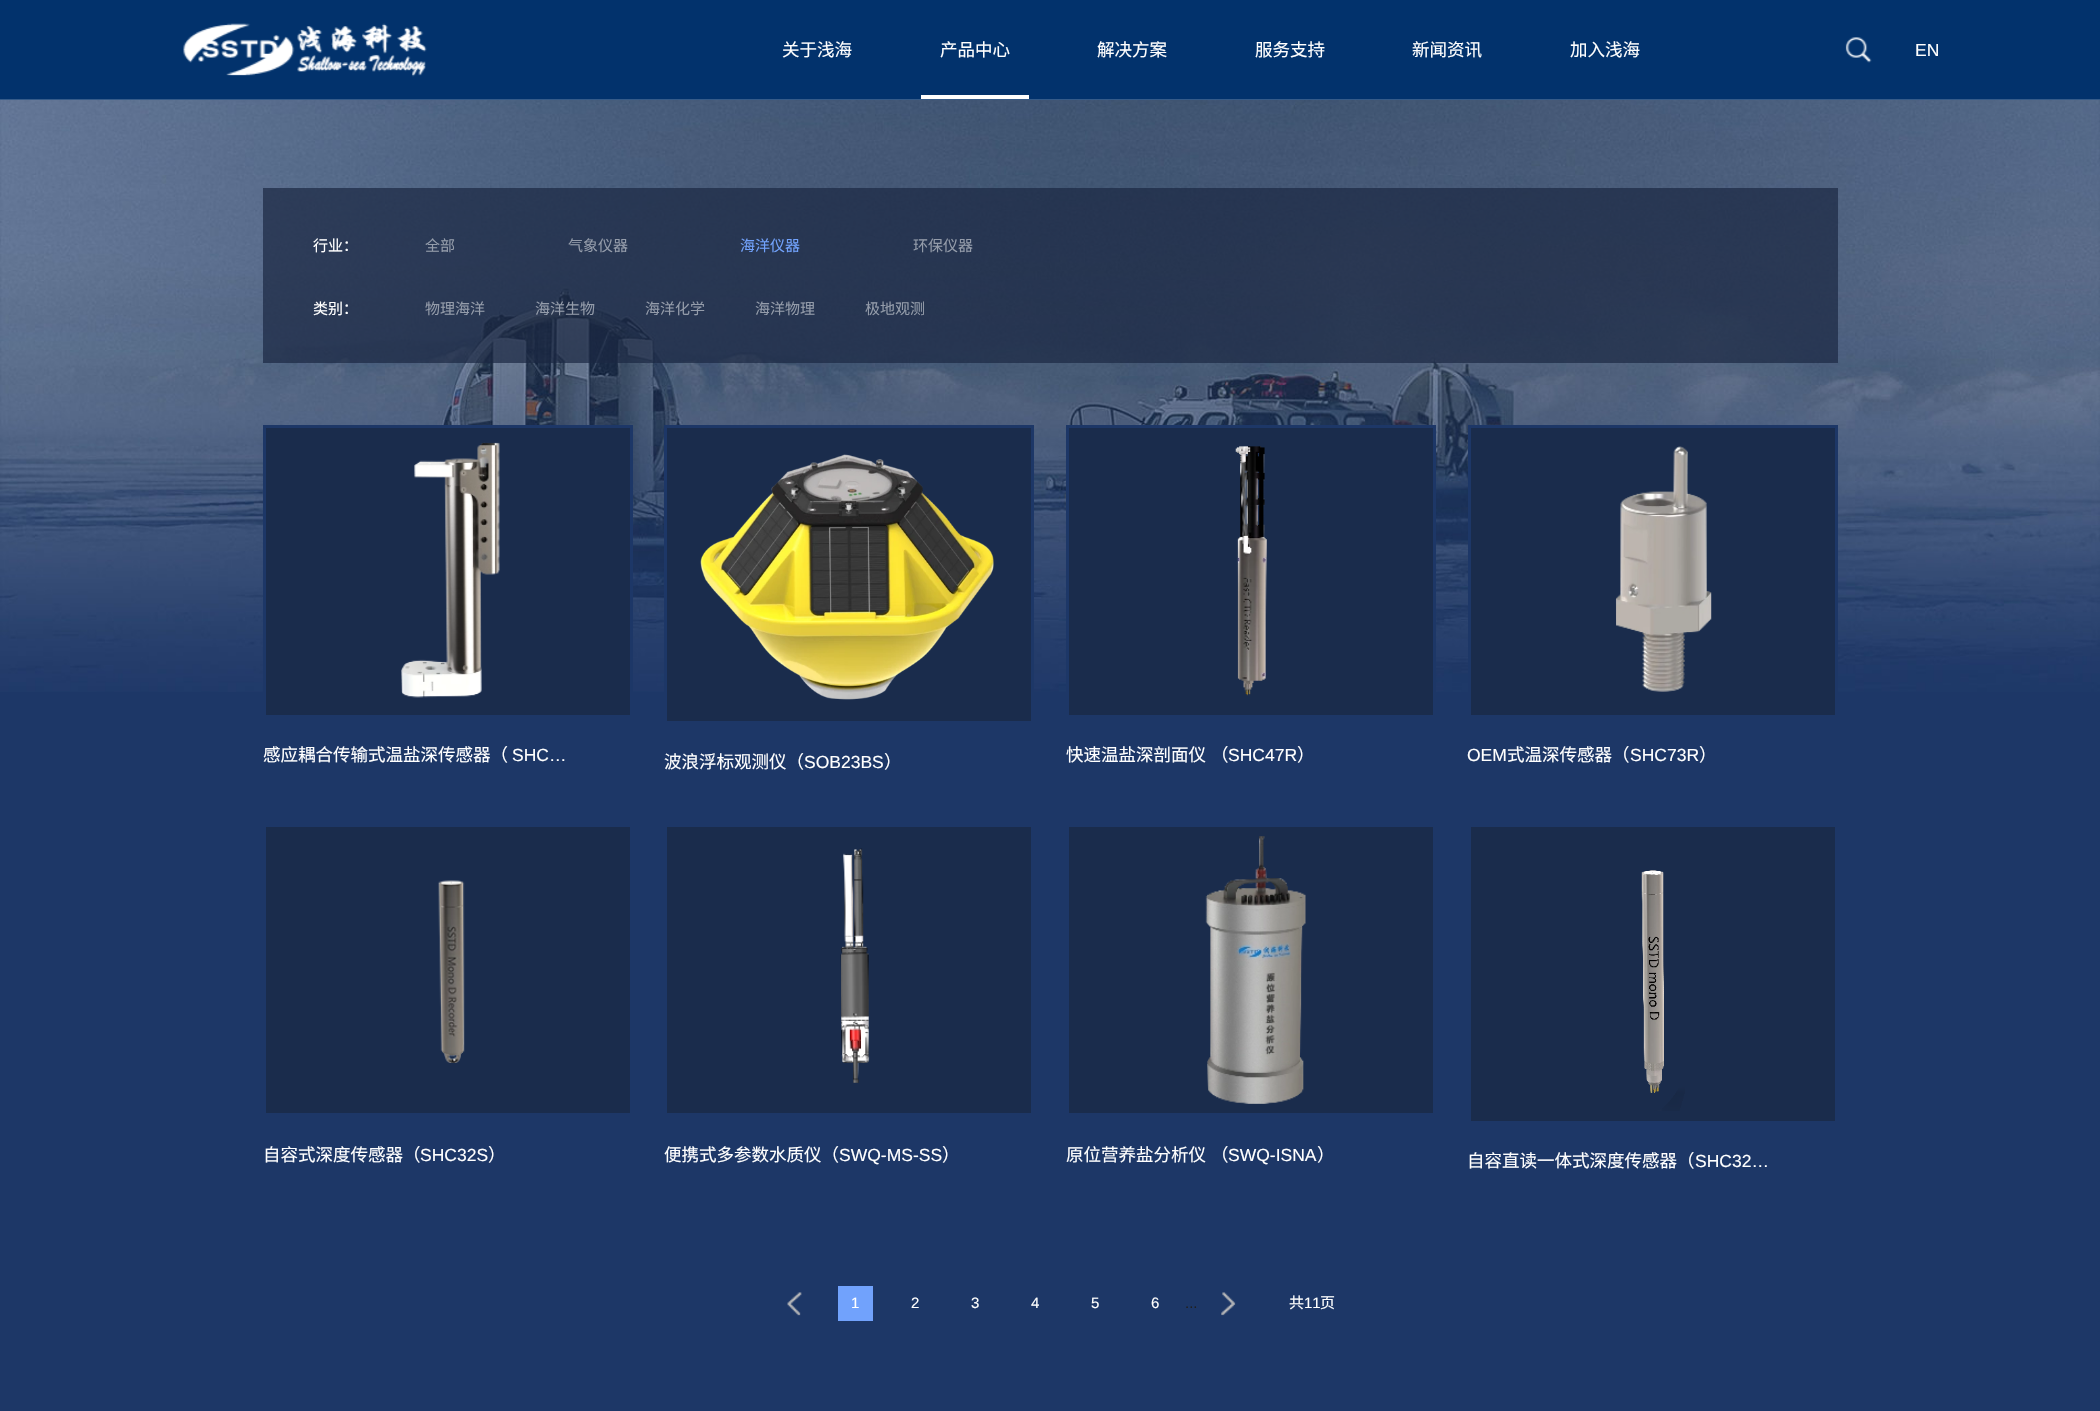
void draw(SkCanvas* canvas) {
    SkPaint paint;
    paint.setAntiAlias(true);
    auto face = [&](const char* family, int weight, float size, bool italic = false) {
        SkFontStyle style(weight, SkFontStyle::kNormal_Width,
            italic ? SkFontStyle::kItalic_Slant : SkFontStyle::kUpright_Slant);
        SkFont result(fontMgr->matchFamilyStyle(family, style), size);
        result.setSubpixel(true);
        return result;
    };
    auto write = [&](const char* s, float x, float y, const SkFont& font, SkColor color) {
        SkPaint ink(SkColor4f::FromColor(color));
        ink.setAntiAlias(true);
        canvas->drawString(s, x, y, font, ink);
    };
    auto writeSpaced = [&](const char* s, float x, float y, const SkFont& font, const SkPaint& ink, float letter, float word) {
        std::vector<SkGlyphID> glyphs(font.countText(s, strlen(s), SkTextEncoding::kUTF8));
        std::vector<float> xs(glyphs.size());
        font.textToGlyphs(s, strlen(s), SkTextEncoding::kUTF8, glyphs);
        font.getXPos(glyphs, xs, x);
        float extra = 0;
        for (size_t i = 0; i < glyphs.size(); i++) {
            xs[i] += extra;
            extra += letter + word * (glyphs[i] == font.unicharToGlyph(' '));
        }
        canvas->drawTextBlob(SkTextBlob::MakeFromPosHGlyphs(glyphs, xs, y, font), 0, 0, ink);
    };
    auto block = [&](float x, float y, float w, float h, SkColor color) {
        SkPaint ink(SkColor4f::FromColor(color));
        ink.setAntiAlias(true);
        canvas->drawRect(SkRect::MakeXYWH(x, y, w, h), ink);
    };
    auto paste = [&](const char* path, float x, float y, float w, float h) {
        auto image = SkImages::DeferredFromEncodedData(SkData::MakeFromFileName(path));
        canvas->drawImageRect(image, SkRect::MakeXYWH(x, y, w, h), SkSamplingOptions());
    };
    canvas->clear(SkColorSetRGB(29, 55, 103));
    block(0, 0, 2100, 99, SkColorSetRGB(2, 50, 108));
    block(0, 99, 2100, 1, SkColorSetRGB(53, 91, 137));
    paste("pic1.png", 183, 23, 244, 54);
    auto kFont1 = face("Noto Sans CJK SC", 400, 17.5f);
    write("关于浅海", 782, 56, kFont1, SK_ColorWHITE);
    write("产品中心", 940, 56, kFont1, SK_ColorWHITE);
    block(921, 95, 108, 4, SK_ColorWHITE);
    write("解决方案", 1097, 56, kFont1, SK_ColorWHITE);
    write("服务支持", 1255, 56, kFont1, SK_ColorWHITE);
    write("新闻资讯", 1412, 56, kFont1, SK_ColorWHITE);
    write("加入浅海", 1570, 56, kFont1, SK_ColorWHITE);
    paste("pic2.png", 1845, 37, 27, 26);
    auto kFont2 = face("Liberation Sans", 400, 17.5f);
    write("EN", 1915, 56, kFont2, SK_ColorWHITE);
    paste("pic3.png", 0, 100, 2100, 592);
    block(263, 188, 1575, 175, SkColorSetARGB(179, 25, 39, 65));
    auto kFont3 = face("Noto Sans CJK SC", 400, 15);
    write("行业：", 313, 251, kFont3, SK_ColorWHITE);
    write("全部", 425, 251, kFont3, SkColorSetRGB(148, 156, 170));
    write("气象仪器", 568, 251, kFont3, SkColorSetRGB(148, 156, 170));
    write("海洋仪器", 740, 251, kFont3, SkColorSetRGB(113, 162, 252));
    write("环保仪器", 913, 251, kFont3, SkColorSetRGB(148, 156, 170));
    write("类别：", 313, 314, kFont3, SK_ColorWHITE);
    write("物理海洋", 425, 314, kFont3, SkColorSetRGB(148, 156, 170));
    write("海洋生物", 535, 314, kFont3, SkColorSetRGB(148, 156, 170));
    write("海洋化学", 645, 314, kFont3, SkColorSetRGB(148, 156, 170));
    write("海洋物理", 755, 314, kFont3, SkColorSetRGB(148, 156, 170));
    write("极地观测", 865, 314, kFont3, SkColorSetRGB(148, 156, 170));
    paint.setColor(SkColorSetRGB(26, 44, 76));
    canvas->drawRect(SkRect::MakeXYWH(264.5f, 426.5f, 367, 290), paint);
    paint.setStyle(SkPaint::kStroke_Style);
    paint.setStrokeWidth(3);
    paint.setColor(SkColorSetRGB(29, 55, 103));
    canvas->drawRect(SkRect::MakeXYWH(264.5f, 426.5f, 367, 290), paint);
    paste("pic4.png", 401, 442, 99, 256);
    write("感应耦合传输式温盐深传感器（", 263, 761, kFont1, SK_ColorWHITE);
    write("SHC…", 512, 761, kFont2, SK_ColorWHITE);
    paint.setStyle(SkPaint::kFill_Style);
    paint.setColor(SkColorSetRGB(26, 44, 76));
    canvas->drawRect(SkRect::MakeXYWH(665.5f, 426.5f, 367, 296), paint);
    paint.setStyle(SkPaint::kStroke_Style);
    paint.setColor(SkColorSetRGB(29, 55, 103));
    canvas->drawRect(SkRect::MakeXYWH(665.5f, 426.5f, 367, 296), paint);
    paste("pic5.png", 700, 454, 294, 246);
    write("波浪浮标观测仪（", 664, 768, kFont1, SK_ColorWHITE);
    write("SOB23BS", 804, 768, kFont2, SK_ColorWHITE);
    write("）", 884, 768, kFont1, SK_ColorWHITE);
    paint.setStyle(SkPaint::kFill_Style);
    paint.setColor(SkColorSetRGB(26, 44, 76));
    canvas->drawRect(SkRect::MakeXYWH(1067.5f, 426.5f, 367, 290), paint);
    paint.setStyle(SkPaint::kStroke_Style);
    paint.setColor(SkColorSetRGB(29, 55, 103));
    canvas->drawRect(SkRect::MakeXYWH(1067.5f, 426.5f, 367, 290), paint);
    paste("pic6.png", 1235, 446, 32, 250);
    paint.setStyle(SkPaint::kFill_Style);
    paint.setColor(SK_ColorWHITE);
    writeSpaced("快速温盐深剖面仪 （", 1066, 761, kFont1, paint, 0, 1);
    write("SHC47R", 1228, 761, kFont2, SK_ColorWHITE);
    write("）", 1297, 761, kFont1, SK_ColorWHITE);
    paint.setColor(SkColorSetRGB(26, 44, 76));
    canvas->drawRect(SkRect::MakeXYWH(1469.5f, 426.5f, 367, 290), paint);
    paint.setStyle(SkPaint::kStroke_Style);
    paint.setColor(SkColorSetRGB(29, 55, 103));
    canvas->drawRect(SkRect::MakeXYWH(1469.5f, 426.5f, 367, 290), paint);
    paste("pic7.png", 1615, 446, 97, 246);
    write("OEM", 1467, 761, kFont2, SK_ColorWHITE);
    write("式温深传感器（", 1507, 761, kFont1, SK_ColorWHITE);
    write("SHC73R", 1630, 761, kFont2, SK_ColorWHITE);
    write("）", 1699, 761, kFont1, SK_ColorWHITE);
    block(266, 827, 364, 286, SkColorSetRGB(26, 44, 76));
    paste("pic8.png", 438, 880, 27, 183);
    write("自容式深度传感器（", 263, 1161, kFont1, SK_ColorWHITE);
    write("SHC32S", 420, 1161, kFont2, SK_ColorWHITE);
    write("）", 488, 1161, kFont1, SK_ColorWHITE);
    block(667, 827, 364, 286, SkColorSetRGB(26, 44, 76));
    paste("pic9.png", 840, 848, 30, 235);
    write("便携式多参数水质仪（", 664, 1161, kFont1, SK_ColorWHITE);
    write("SWQ-MS-SS", 839, 1161, kFont2, SK_ColorWHITE);
    write("）", 942, 1161, kFont1, SK_ColorWHITE);
    block(1069, 827, 364, 286, SkColorSetRGB(26, 44, 76));
    paste("pic10.png", 1205, 836, 101, 268);
    paint.setStyle(SkPaint::kFill_Style);
    paint.setColor(SK_ColorWHITE);
    writeSpaced("原位营养盐分析仪 （", 1066, 1161, kFont1, paint, 0, 1);
    write("SWQ-ISNA", 1228, 1161, kFont2, SK_ColorWHITE);
    write("）", 1317, 1161, kFont1, SK_ColorWHITE);
    block(1471, 827, 364, 294, SkColorSetRGB(26, 44, 76));
    paste("pic11.png", 1641, 870, 44, 241);
    write("自容直读一体式深度传感器（", 1467, 1167, kFont1, SK_ColorWHITE);
    write("SHC32…", 1695, 1167, kFont2, SK_ColorWHITE);
    paste("pic12.png", 787, 1292, 15, 24);
    block(838, 1286, 35, 35, SkColorSetRGB(113, 162, 252));
    auto kFont4 = face("Liberation Sans", 400, 15);
    write("1", 851, 1308, kFont4, SK_ColorWHITE);
    write("2", 911, 1308, kFont4, SK_ColorWHITE);
    write("3", 971, 1308, kFont4, SK_ColorWHITE);
    write("4", 1031, 1308, kFont4, SK_ColorWHITE);
    write("5", 1091, 1308, kFont4, SK_ColorWHITE);
    write("6", 1151, 1308, kFont4, SK_ColorWHITE);
    write("...", 1185, 1308, kFont4, SkColorSetRGB(31, 31, 31));
    paste("pic13.png", 1221, 1292, 15, 24);
    write("共", 1289, 1308, kFont3, SK_ColorWHITE);
    write("11", 1304, 1308, kFont4, SK_ColorWHITE);
    write("页", 1320, 1308, kFont3, SK_ColorWHITE);
}
